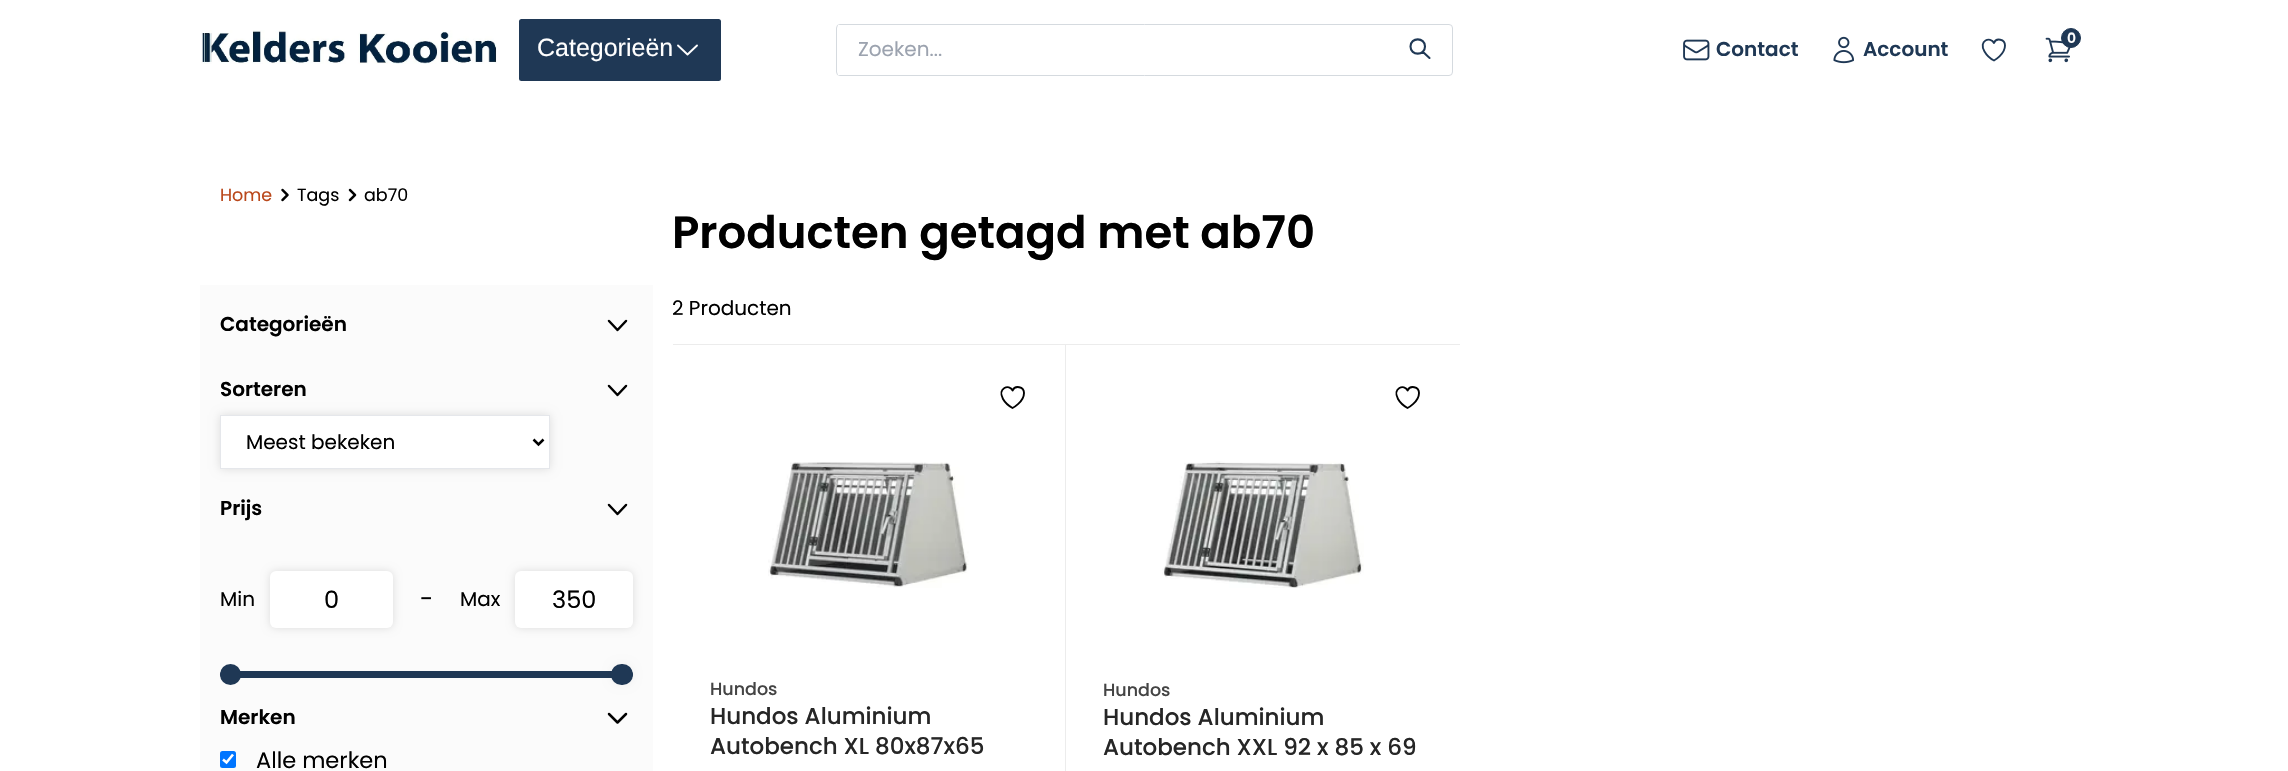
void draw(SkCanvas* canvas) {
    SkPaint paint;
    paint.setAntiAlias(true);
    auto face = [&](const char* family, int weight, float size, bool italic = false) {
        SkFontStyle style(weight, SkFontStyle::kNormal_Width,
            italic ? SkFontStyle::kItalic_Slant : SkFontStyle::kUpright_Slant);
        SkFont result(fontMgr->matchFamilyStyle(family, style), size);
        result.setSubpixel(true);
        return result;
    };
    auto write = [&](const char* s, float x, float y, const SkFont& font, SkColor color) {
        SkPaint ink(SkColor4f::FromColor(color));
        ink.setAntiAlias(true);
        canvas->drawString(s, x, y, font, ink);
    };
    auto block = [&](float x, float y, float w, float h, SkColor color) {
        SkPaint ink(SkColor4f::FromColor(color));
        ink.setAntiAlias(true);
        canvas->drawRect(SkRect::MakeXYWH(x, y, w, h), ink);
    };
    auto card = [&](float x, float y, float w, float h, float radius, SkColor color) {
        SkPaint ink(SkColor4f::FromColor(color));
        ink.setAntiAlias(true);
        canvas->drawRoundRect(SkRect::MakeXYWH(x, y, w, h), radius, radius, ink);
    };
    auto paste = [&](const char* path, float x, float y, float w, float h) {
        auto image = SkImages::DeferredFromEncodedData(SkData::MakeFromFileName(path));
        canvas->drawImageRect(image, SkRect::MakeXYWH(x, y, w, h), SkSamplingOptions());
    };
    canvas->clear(SK_ColorWHITE);
    paste("pic1.png", 201, 30, 296, 34);
    card(519, 19, 202, 62, 2.5f, SkColorSetRGB(31, 56, 85));
    auto kFont1 = face("Liberation Sans", 400, 25);
    write("Categorieën", 537, 56, kFont1, SK_ColorWHITE);
    paint.setStyle(SkPaint::kStroke_Style);
    paint.setStrokeWidth(1.9f);
    paint.setStrokeCap(SkPaint::kRound_Cap);
    paint.setStrokeJoin(SkPaint::kRound_Join);
    paint.setColor(SK_ColorWHITE);
    canvas->drawPath(SkPathBuilder().moveTo(697, 45.5f).lineTo(687.5f, 54.5f).lineTo(678, 45.5f).detach(), paint);
    paint.setStrokeWidth(1);
    paint.setStrokeCap(SkPaint::kButt_Cap);
    paint.setStrokeJoin(SkPaint::kMiter_Join);
    paint.setColor(SkColorSetRGB(213, 218, 223));
    canvas->drawRoundRect(SkRect::MakeXYWH(836.5f, 24.5f, 616, 51), 3.5f, 3.5f, paint);
    block(838, 25, 2, 50, SK_ColorWHITE);
    auto kFont2 = face("Poppins", 400, 20);
    write("Zoeken...", 858, 56, kFont2, SkColorSetRGB(156, 163, 175));
    paint.setStrokeWidth(2.1f);
    paint.setStrokeCap(SkPaint::kRound_Cap);
    paint.setStrokeJoin(SkPaint::kRound_Join);
    paint.setColor(SkColorSetRGB(31, 56, 85));
    canvas->drawPath(SkPathBuilder().moveTo(1429.5f, 58).lineTo(1423, 52).moveTo(1425, 46.5f).cubicTo(1425, 56, 1410.5f, 56, 1410.5f, 46.5f).cubicTo(1410.5f, 37, 1425, 37, 1425, 46.5f).close().detach(), paint);
    paste("pic2.png", 1683, 39, 27, 22);
    auto kFont3 = face("Poppins", 600, 20);
    write("Contact", 1716, 56, kFont3, SkColorSetRGB(31, 56, 85));
    paste("pic3.png", 1833, 36, 21, 28);
    write("Account", 1863, 56, kFont3, SkColorSetRGB(31, 56, 85));
    paint.setStrokeWidth(1.9f);
    canvas->drawPath(SkPathBuilder().moveTo(2005, 45.5f).cubicTo(2005, 39, 1996, 37.5f, 1994, 43).cubicTo(1990.5f, 36, 1978, 40.5f, 1984.5f, 51.5f).cubicTo(1986.5f, 55, 1990, 58.5f, 1994, 60.5f).cubicTo(1994, 60.5f, 2005, 54.5f, 2005, 45.5f).close().detach(), paint);
    paste("pic4.png", 2045, 37, 26, 26);
    paint.setStyle(SkPaint::kFill_Style);
    canvas->drawCircle(2071, 38, 9.5f, paint);
    paint.setStyle(SkPaint::kStroke_Style);
    paint.setStrokeWidth(1);
    paint.setStrokeCap(SkPaint::kButt_Cap);
    paint.setStrokeJoin(SkPaint::kMiter_Join);
    canvas->drawCircle(2071, 38, 9.5f, paint);
    auto kFont4 = face("Poppins", 600, 14);
    write("0", 2067, 43, kFont4, SK_ColorWHITE);
    auto kFont5 = face("Poppins", 400, 17.5f);
    write("Home", 220, 201, kFont5, SkColorSetRGB(186, 72, 27));
    paste("pic5.png", 281, 188, 8, 14);
    write("Tags", 297, 201, kFont5, SK_ColorBLACK);
    paste("pic6.png", 348, 188, 9, 14);
    write("ab70", 364, 201, kFont5, SK_ColorBLACK);
    block(200, 285, 453, 486, SkColorSetRGB(251, 251, 251));
    write("Categorieën", 220, 331, kFont3, SK_ColorBLACK);
    paint.setStrokeWidth(2.5f);
    paint.setStrokeCap(SkPaint::kRound_Cap);
    paint.setStrokeJoin(SkPaint::kRound_Join);
    paint.setColor(SK_ColorBLACK);
    canvas->drawPath(SkPathBuilder().moveTo(626, 321).lineTo(617.5f, 330).lineTo(609, 321).detach(), paint);
    write("Sorteren", 220, 396, kFont3, SK_ColorBLACK);
    canvas->drawPath(SkPathBuilder().moveTo(626, 386).lineTo(617.5f, 395).lineTo(609, 386).detach(), paint);
    paint.setStyle(SkPaint::kFill_Style);
    paint.setColor(SkColorSetARGB(31, 0, 0, 0));
    paint.setMaskFilter(SkMaskFilter::MakeBlur(kNormal_SkBlurStyle, 4.5f));
    canvas->drawRect(SkRect::MakeXYWH(220, 415, 330, 54), paint);
    paint.setMaskFilter(nullptr);
    paint.setColor(SK_ColorWHITE);
    canvas->drawRect(SkRect::MakeXYWH(220.5f, 415.5f, 329, 53), paint);
    paint.setStyle(SkPaint::kStroke_Style);
    paint.setStrokeWidth(1);
    paint.setStrokeCap(SkPaint::kButt_Cap);
    paint.setStrokeJoin(SkPaint::kMiter_Join);
    paint.setColor(SkColorSetRGB(229, 231, 235));
    canvas->drawRect(SkRect::MakeXYWH(220.5f, 415.5f, 329, 53), paint);
    paint.setStrokeWidth(2.5f);
    paint.setColor(SK_ColorBLACK);
    canvas->drawPath(SkPathBuilder().moveTo(533.5f, 439.5f).lineTo(538.5f, 444.5f).lineTo(543.5f, 439.5f).detach(), paint);
    write("Meest bekeken", 246, 449, kFont2, SK_ColorBLACK);
    write("Prijs", 220, 515, kFont3, SK_ColorBLACK);
    paint.setStrokeCap(SkPaint::kRound_Cap);
    paint.setStrokeJoin(SkPaint::kRound_Join);
    canvas->drawPath(SkPathBuilder().moveTo(626, 505).lineTo(617.5f, 514).lineTo(609, 505).detach(), paint);
    write("Min", 220, 606, kFont2, SK_ColorBLACK);
    paint.setStyle(SkPaint::kFill_Style);
    paint.setColor(SkColorSetARGB(31, 0, 0, 0));
    paint.setMaskFilter(SkMaskFilter::MakeBlur(kNormal_SkBlurStyle, 4.5f));
    canvas->drawRoundRect(SkRect::MakeXYWH(270, 571, 123, 57), 6, 6, paint);
    paint.setMaskFilter(nullptr);
    card(270, 571, 123, 57, 6, SK_ColorWHITE);
    auto kFont6 = face("Poppins", 400, 24);
    write("0", 324, 608, kFont6, SK_ColorBLACK);
    write("-", 420, 607, kFont6, SK_ColorBLACK);
    write("Max", 460, 606, kFont2, SK_ColorBLACK);
    paint.setMaskFilter(SkMaskFilter::MakeBlur(kNormal_SkBlurStyle, 4.5f));
    canvas->drawRoundRect(SkRect::MakeXYWH(515, 571, 118, 57), 6, 6, paint);
    paint.setMaskFilter(nullptr);
    card(515, 571, 118, 57, 6, SK_ColorWHITE);
    write("350", 552, 608, kFont6, SK_ColorBLACK);
    card(220, 671, 413, 7, 3.5f, SkColorSetRGB(31, 56, 85));
    paint.setColor(SkColorSetRGB(31, 56, 85));
    canvas->drawCircle(230.5f, 674.5f, 10.5f, paint);
    paint.setColor(SkColorSetARGB(13, 0, 0, 0));
    paint.setMaskFilter(SkMaskFilter::MakeBlur(kNormal_SkBlurStyle, 4));
    canvas->drawRoundRect(SkRect::MakeXYWH(611, 664, 22, 21), 10.5f, 10.5f, paint);
    paint.setMaskFilter(nullptr);
    card(611, 664, 22, 21, 10.5f, SkColorSetRGB(31, 56, 85));
    write("Merken", 220, 724, kFont3, SK_ColorBLACK);
    paint.setStyle(SkPaint::kStroke_Style);
    paint.setColor(SK_ColorBLACK);
    canvas->drawPath(SkPathBuilder().moveTo(626, 714).lineTo(617.5f, 722.5f).lineTo(609, 714).detach(), paint);
    card(220, 751, 16, 17, 2.5f, SkColorSetRGB(0, 117, 255));
    paint.setStrokeWidth(2.6f);
    paint.setStrokeCap(SkPaint::kButt_Cap);
    paint.setStrokeJoin(SkPaint::kMiter_Join);
    paint.setColor(SK_ColorWHITE);
    canvas->drawPath(SkPathBuilder().moveTo(223, 759.5f).lineTo(226.5f, 762.5f).lineTo(233, 754.5f).detach(), paint);
    auto kFont7 = face("Poppins", 400, 22.5f);
    write("Alle merken", 256, 768, kFont7, SK_ColorBLACK);
    auto kFont8 = face("Poppins", 600, 45);
    write("Producten getagd met ab70", 672, 248, kFont8, SK_ColorBLACK);
    write("2 Producten", 672, 315, kFont2, SK_ColorBLACK);
    block(673, 344, 787, 1, SkColorSetRGB(236, 236, 236));
    block(1065, 344, 1, 427, SkColorSetRGB(236, 236, 236));
    paint.setStrokeWidth(1.9f);
    paint.setStrokeCap(SkPaint::kRound_Cap);
    paint.setStrokeJoin(SkPaint::kRound_Join);
    paint.setColor(SK_ColorBLACK);
    canvas->drawPath(SkPathBuilder().moveTo(1024, 393).cubicTo(1024, 386.5f, 1015, 385, 1012.5f, 390.5f).cubicTo(1009.5f, 383.5f, 997, 388, 1003, 399).cubicTo(1005, 402.5f, 1009, 406, 1012.5f, 408).cubicTo(1012.5f, 408, 1024, 402, 1024, 393).close().detach(), paint);
    paste("pic7.png", 768, 462, 201, 126);
    auto kFont9 = face("Poppins", 500, 17.5f);
    write("Hundos", 710, 695, kFont9, SkColorSetRGB(68, 68, 68));
    auto kFont10 = face("Poppins", 500, 23);
    write("Hundos Aluminium", 710, 724, kFont10, SkColorSetRGB(38, 38, 38));
    write("Autobench XL 80x87x65", 710, 754, kFont10, SkColorSetRGB(38, 38, 38));
    canvas->drawPath(SkPathBuilder().moveTo(1419, 393).cubicTo(1419, 386.5f, 1410, 385, 1407.5f, 390.5f).cubicTo(1404.5f, 383.5f, 1392, 388, 1398, 399).cubicTo(1400, 402.5f, 1404, 406, 1407.5f, 408).cubicTo(1407.5f, 408, 1419, 402, 1419, 393).close().detach(), paint);
    paste("pic8.png", 1162, 461, 202, 127);
    write("Hundos", 1103, 696, kFont9, SkColorSetRGB(68, 68, 68));
    write("Hundos Aluminium", 1103, 725, kFont10, SkColorSetRGB(38, 38, 38));
    write("Autobench XXL 92 x 85 x 69", 1103, 755, kFont10, SkColorSetRGB(38, 38, 38));
}
